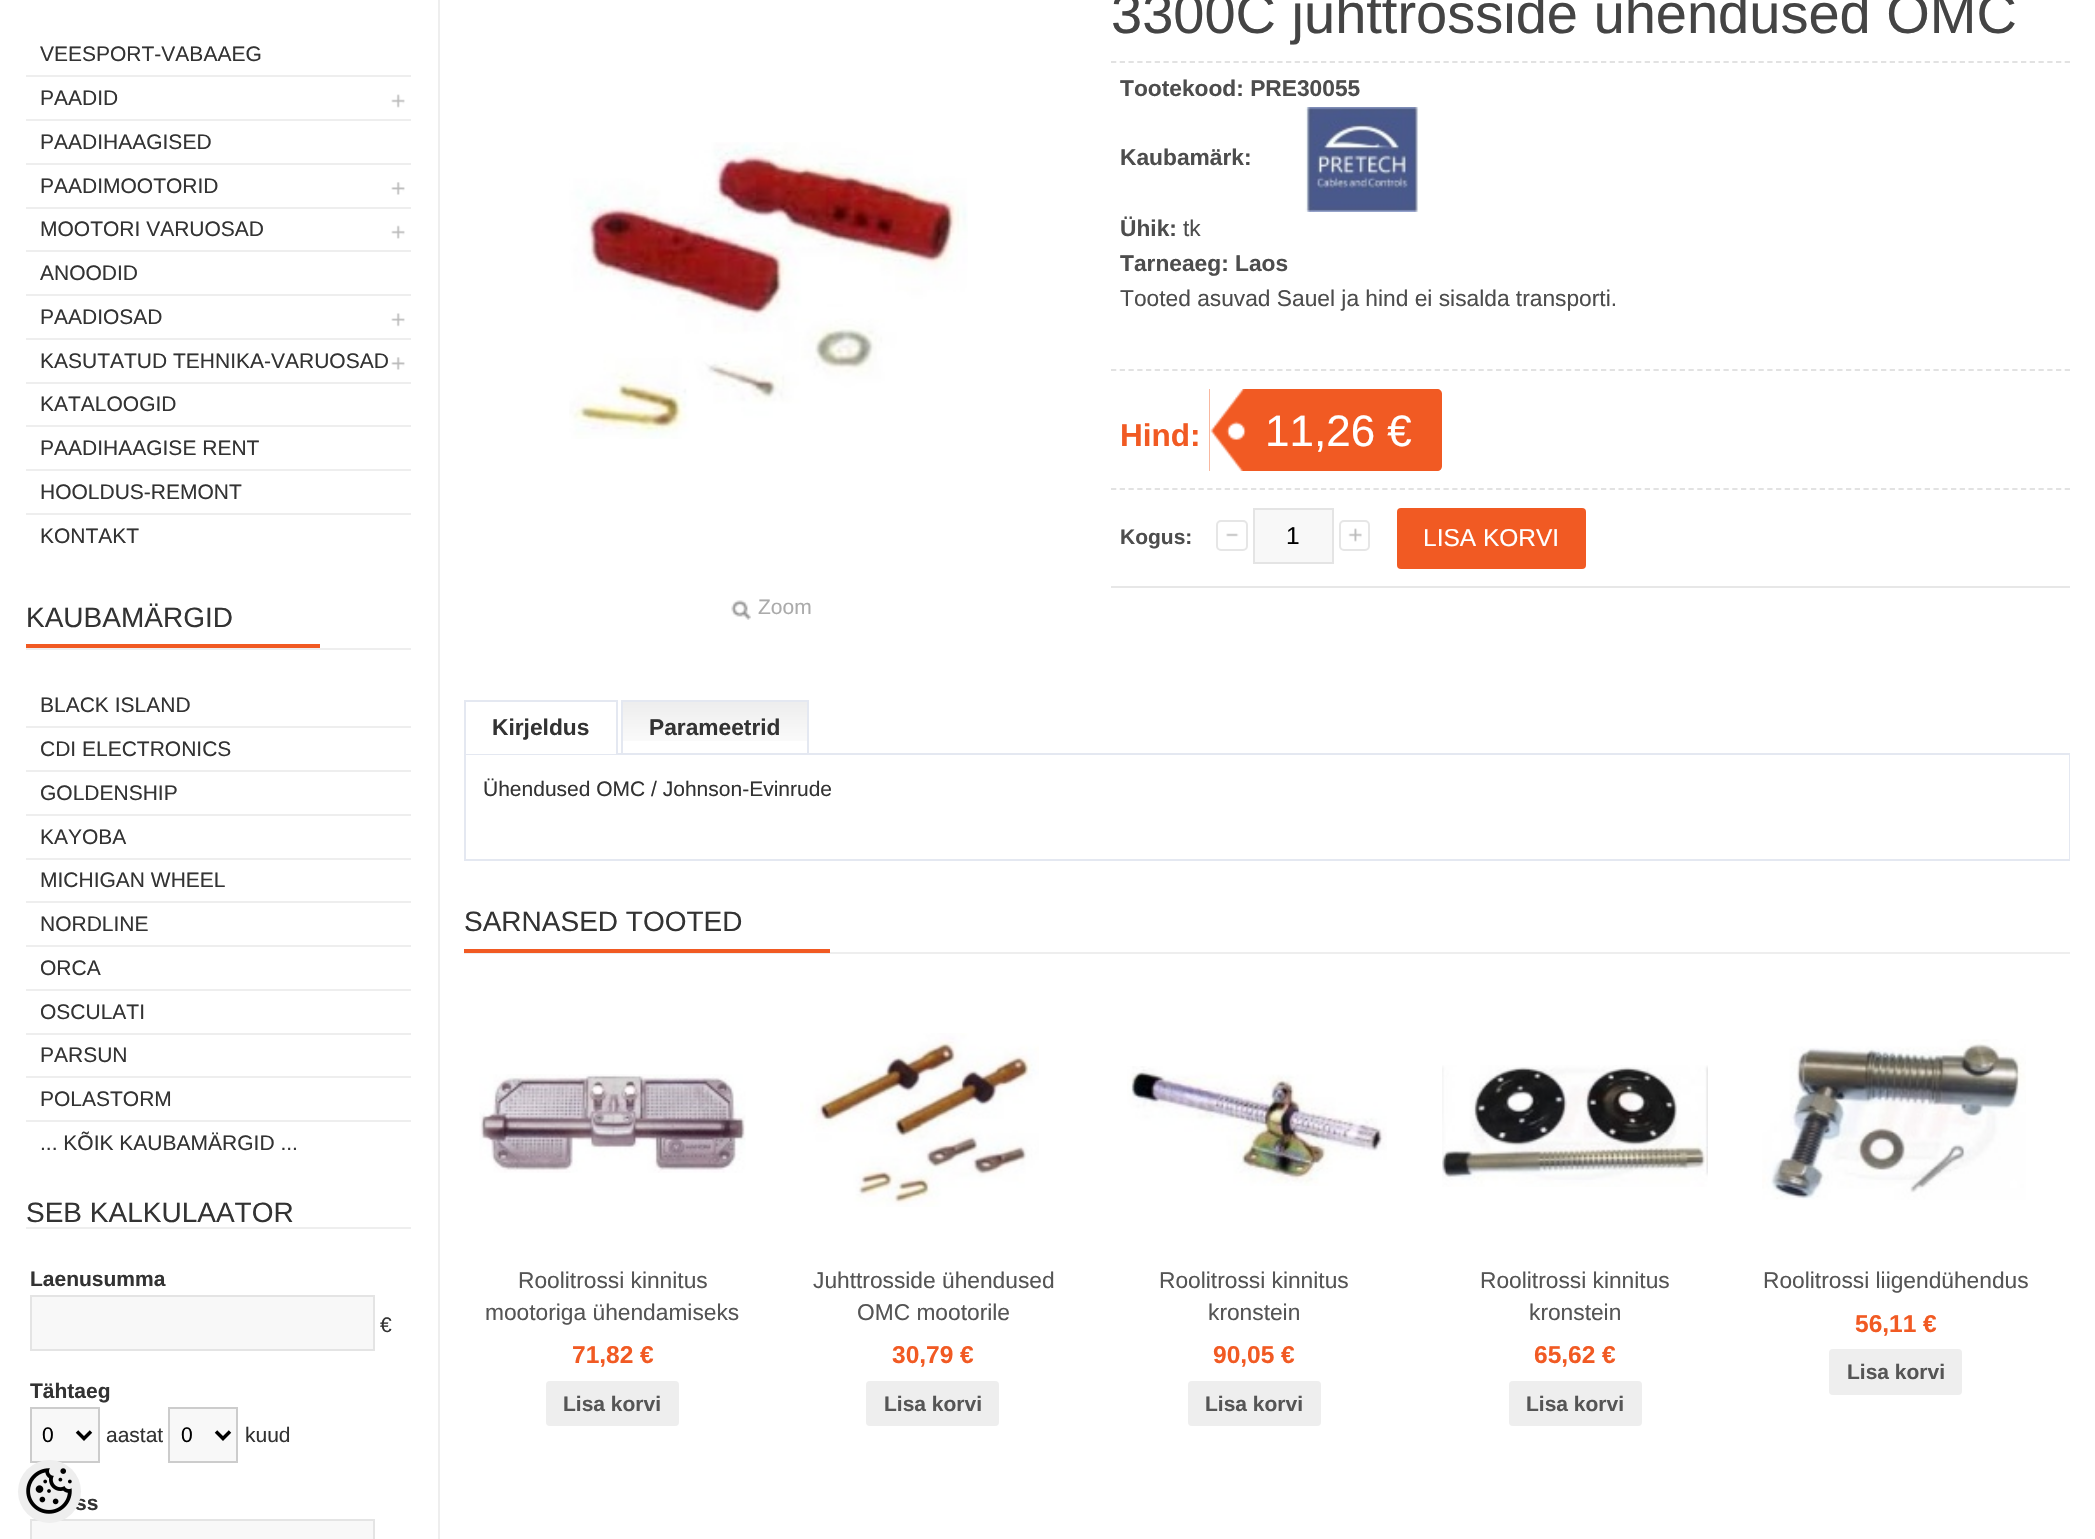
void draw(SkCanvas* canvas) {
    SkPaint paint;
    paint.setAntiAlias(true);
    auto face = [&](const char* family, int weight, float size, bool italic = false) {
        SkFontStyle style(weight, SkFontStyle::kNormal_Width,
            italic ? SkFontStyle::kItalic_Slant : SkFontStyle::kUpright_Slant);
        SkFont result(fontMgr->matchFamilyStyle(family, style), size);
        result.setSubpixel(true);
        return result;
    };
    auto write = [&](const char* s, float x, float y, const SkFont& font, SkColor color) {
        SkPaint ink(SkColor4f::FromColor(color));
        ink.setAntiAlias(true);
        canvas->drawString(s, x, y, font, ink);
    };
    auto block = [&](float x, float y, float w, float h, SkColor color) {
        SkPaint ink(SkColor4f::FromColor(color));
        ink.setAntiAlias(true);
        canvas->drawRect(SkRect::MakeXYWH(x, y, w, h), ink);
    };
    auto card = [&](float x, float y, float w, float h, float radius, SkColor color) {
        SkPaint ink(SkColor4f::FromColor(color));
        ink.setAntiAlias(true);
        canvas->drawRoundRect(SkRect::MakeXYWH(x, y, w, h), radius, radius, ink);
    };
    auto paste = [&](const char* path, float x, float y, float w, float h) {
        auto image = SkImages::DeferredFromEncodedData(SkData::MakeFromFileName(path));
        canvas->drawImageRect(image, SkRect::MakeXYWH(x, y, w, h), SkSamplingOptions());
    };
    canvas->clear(SK_ColorWHITE);
    block(438, 0, 2, 1539, SkColorSetRGB(238, 238, 238));
    auto kFont1 = face("Liberation Sans", 400, 21);
    write("VEESPORT-VABAAEG", 40, 61, kFont1, SkColorSetRGB(51, 51, 51));
    block(26, 75, 385, 2, SkColorSetRGB(238, 238, 238));
    write("PAADID", 40, 105, kFont1, SkColorSetRGB(51, 51, 51));
    paste("pic1.png", 391, 94, 14, 14);
    block(26, 119, 385, 2, SkColorSetRGB(238, 238, 238));
    write("PAADIHAAGISED", 40, 149, kFont1, SkColorSetRGB(51, 51, 51));
    block(26, 163, 385, 2, SkColorSetRGB(238, 238, 238));
    write("PAADIMOOTORID", 40, 193, kFont1, SkColorSetRGB(51, 51, 51));
    paste("pic2.png", 391, 182, 14, 13);
    block(26, 207, 385, 2, SkColorSetRGB(238, 238, 238));
    write("MOOTORI VARUOSAD", 40, 236, kFont1, SkColorSetRGB(51, 51, 51));
    paste("pic3.png", 391, 225, 14, 14);
    block(26, 250, 385, 2, SkColorSetRGB(238, 238, 238));
    write("ANOODID", 40, 280, kFont1, SkColorSetRGB(51, 51, 51));
    block(26, 294, 385, 2, SkColorSetRGB(238, 238, 238));
    write("PAADIOSAD", 40, 324, kFont1, SkColorSetRGB(51, 51, 51));
    paste("pic4.png", 391, 313, 14, 14);
    block(26, 338, 385, 2, SkColorSetRGB(238, 238, 238));
    write("KASUTATUD TEHNIKA-VARUOSAD", 40, 368, kFont1, SkColorSetRGB(51, 51, 51));
    paste("pic2.png", 391, 357, 14, 13);
    block(26, 382, 385, 2, SkColorSetRGB(238, 238, 238));
    write("KATALOOGID", 40, 411, kFont1, SkColorSetRGB(51, 51, 51));
    block(26, 425, 385, 2, SkColorSetRGB(238, 238, 238));
    write("PAADIHAAGISE RENT", 40, 455, kFont1, SkColorSetRGB(51, 51, 51));
    block(26, 469, 385, 2, SkColorSetRGB(238, 238, 238));
    write("HOOLDUS-REMONT", 40, 499, kFont1, SkColorSetRGB(51, 51, 51));
    block(26, 513, 385, 2, SkColorSetRGB(238, 238, 238));
    write("KONTAKT", 40, 543, kFont1, SkColorSetRGB(51, 51, 51));
    block(26, 648, 385, 2, SkColorSetRGB(238, 238, 238));
    block(26, 644, 294, 4, SkColorSetRGB(241, 90, 35));
    auto kFont2 = face("Liberation Sans", 400, 28);
    write("KAUBAMÄRGID", 26, 627, kFont2, SkColorSetRGB(51, 51, 51));
    write("BLACK ISLAND", 40, 712, kFont1, SkColorSetRGB(51, 51, 51));
    block(26, 726, 385, 2, SkColorSetRGB(238, 238, 238));
    write("CDI ELECTRONICS", 40, 756, kFont1, SkColorSetRGB(51, 51, 51));
    block(26, 770, 385, 2, SkColorSetRGB(238, 238, 238));
    write("GOLDENSHIP", 40, 800, kFont1, SkColorSetRGB(51, 51, 51));
    block(26, 814, 385, 2, SkColorSetRGB(238, 238, 238));
    write("KAYOBA", 40, 844, kFont1, SkColorSetRGB(51, 51, 51));
    block(26, 858, 385, 2, SkColorSetRGB(238, 238, 238));
    write("MICHIGAN WHEEL", 40, 887, kFont1, SkColorSetRGB(51, 51, 51));
    block(26, 901, 385, 2, SkColorSetRGB(238, 238, 238));
    write("NORDLINE", 40, 931, kFont1, SkColorSetRGB(51, 51, 51));
    block(26, 945, 385, 2, SkColorSetRGB(238, 238, 238));
    write("ORCA", 40, 975, kFont1, SkColorSetRGB(51, 51, 51));
    block(26, 989, 385, 2, SkColorSetRGB(238, 238, 238));
    write("OSCULATI", 40, 1019, kFont1, SkColorSetRGB(51, 51, 51));
    block(26, 1033, 385, 2, SkColorSetRGB(238, 238, 238));
    write("PARSUN", 40, 1062, kFont1, SkColorSetRGB(51, 51, 51));
    block(26, 1076, 385, 2, SkColorSetRGB(238, 238, 238));
    write("POLASTORM", 40, 1106, kFont1, SkColorSetRGB(51, 51, 51));
    block(26, 1120, 385, 2, SkColorSetRGB(238, 238, 238));
    write("... KÕIK KAUBAMÄRGID ...", 40, 1150, kFont1, SkColorSetRGB(51, 51, 51));
    block(26, 1227, 385, 2, SkColorSetRGB(238, 238, 238));
    write("SEB KALKULAATOR", 26, 1222, kFont2, SkColorSetRGB(51, 51, 51));
    auto kFont3 = face("Liberation Sans", 700, 21);
    write("Laenusumma", 30, 1286, kFont3, SkColorSetRGB(51, 51, 51));
    paint.setColor(SkColorSetRGB(248, 248, 248));
    canvas->drawRect(SkRect::MakeXYWH(31, 1296, 343, 54), paint);
    paint.setStyle(SkPaint::kStroke_Style);
    paint.setStrokeWidth(2);
    paint.setColor(SkColorSetRGB(228, 228, 228));
    canvas->drawRect(SkRect::MakeXYWH(31, 1296, 343, 54), paint);
    write("€", 380, 1332, kFont1, SkColorSetRGB(51, 51, 51));
    write("Tähtaeg", 30, 1398, kFont3, SkColorSetRGB(51, 51, 51));
    paint.setStyle(SkPaint::kFill_Style);
    paint.setColor(SkColorSetRGB(248, 248, 248));
    canvas->drawRect(SkRect::MakeXYWH(31, 1408, 68, 54), paint);
    paint.setStyle(SkPaint::kStroke_Style);
    paint.setColor(SkColorSetRGB(204, 204, 204));
    canvas->drawRect(SkRect::MakeXYWH(31, 1408, 68, 54), paint);
    paint.setStrokeWidth(3.5f);
    paint.setColor(SK_ColorBLACK);
    canvas->drawPath(SkPathBuilder().moveTo(77, 1431.5f).lineTo(84, 1438.5f).lineTo(91, 1431.5f).detach(), paint);
    write("0", 42, 1442, kFont1, SK_ColorBLACK);
    write("aastat", 106, 1442, kFont1, SkColorSetRGB(51, 51, 51));
    paint.setStyle(SkPaint::kFill_Style);
    paint.setColor(SkColorSetRGB(248, 248, 248));
    canvas->drawRect(SkRect::MakeXYWH(169, 1408, 68, 54), paint);
    paint.setStyle(SkPaint::kStroke_Style);
    paint.setStrokeWidth(2);
    paint.setColor(SkColorSetRGB(204, 204, 204));
    canvas->drawRect(SkRect::MakeXYWH(169, 1408, 68, 54), paint);
    paint.setStrokeWidth(3.5f);
    paint.setColor(SK_ColorBLACK);
    canvas->drawPath(SkPathBuilder().moveTo(216, 1431.5f).lineTo(223, 1438.5f).lineTo(230, 1431.5f).detach(), paint);
    write("0", 181, 1442, kFont1, SK_ColorBLACK);
    write("kuud", 245, 1442, kFont1, SkColorSetRGB(51, 51, 51));
    write("ss", 75, 1510, kFont3, SkColorSetRGB(51, 51, 51));
    paint.setStyle(SkPaint::kFill_Style);
    paint.setColor(SkColorSetRGB(248, 248, 248));
    canvas->drawRect(SkRect::MakeXYWH(31, 1520, 343, 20), paint);
    paint.setStyle(SkPaint::kStroke_Style);
    paint.setStrokeWidth(2);
    paint.setColor(SkColorSetRGB(228, 228, 228));
    canvas->drawRect(SkRect::MakeXYWH(31, 1520, 343, 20), paint);
    auto kFont4 = face("Liberation Sans", 400, 56);
    write("3300C juhttrosside ühendused OMC", 1111, 33, kFont4, SkColorSetRGB(68, 68, 68));
    paint.setStrokeWidth(1.8f);
    paint.setColor(SkColorSetRGB(226, 226, 226));
    paint.setPathEffect(SkDashPathEffect::Make({{5.25f, 3.5f}}, 0));
    canvas->drawPath(SkPathBuilder().moveTo(1111, 62).lineTo(2070, 62).detach(), paint);
    paint.setPathEffect(nullptr);
    paint.setPathEffect(SkDashPathEffect::Make({{5.25f, 3.5f}}, 0));
    canvas->drawPath(SkPathBuilder().moveTo(1111, 370).lineTo(2070, 370).detach(), paint);
    paint.setPathEffect(nullptr);
    auto kFont5 = face("Liberation Sans", 700, 22.75f);
    write("Tootekood: PRE30055", 1120, 96, kFont5, SkColorSetRGB(77, 77, 77));
    write("Kaubamärk:", 1120, 165, kFont5, SkColorSetRGB(77, 77, 77));
    paste("pic5.png", 1305, 107, 114, 105);
    write("Ühik:", 1120, 236, kFont5, SkColorSetRGB(77, 77, 77));
    auto kFont6 = face("Liberation Sans", 400, 22.75f);
    write("tk", 1183, 236, kFont6, SkColorSetRGB(77, 77, 77));
    write("Tarneaeg: Laos", 1120, 271, kFont5, SkColorSetRGB(77, 77, 77));
    write("Tooted asuvad Sauel ja hind ei sisalda transporti.", 1120, 306, kFont6, SkColorSetRGB(77, 77, 77));
    paint.setPathEffect(SkDashPathEffect::Make({{5.25f, 3.5f}}, 0));
    canvas->drawPath(SkPathBuilder().moveTo(1111, 489).lineTo(2070, 489).detach(), paint);
    paint.setPathEffect(nullptr);
    auto kFont7 = face("Liberation Sans", 700, 31.5f);
    write("Hind:", 1120, 446, kFont7, SkColorSetRGB(241, 90, 35));
    paint.setStyle(SkPaint::kFill_Style);
    paint.setColor(SkColorSetRGB(241, 90, 35));
    canvas->drawPath(SkPathBuilder().moveTo(1209, 389).lineTo(1437, 389).cubicTo(1440, 389, 1442, 391, 1442, 394).lineTo(1442, 466).cubicTo(1442, 469, 1440, 471, 1437, 471).lineTo(1209, 471).close().detach(), paint);
    paste("pic6.png", 1209, 389, 37, 82);
    auto kFont8 = face("Liberation Sans", 400, 44);
    write("11,26 €", 1265, 446, kFont8, SK_ColorWHITE);
    block(1111, 586, 959, 2, SkColorSetRGB(231, 231, 231));
    write("Kogus:", 1120, 544, kFont3, SkColorSetRGB(77, 77, 77));
    paste("pic7.png", 1226, 533, 13, 4);
    paint.setStyle(SkPaint::kStroke_Style);
    paint.setStrokeWidth(2);
    paint.setColor(SkColorSetRGB(230, 230, 230));
    canvas->drawRoundRect(SkRect::MakeXYWH(1217, 521, 30, 29), 4, 4, paint);
    paint.setStyle(SkPaint::kFill_Style);
    paint.setColor(SkColorSetRGB(248, 248, 248));
    canvas->drawRect(SkRect::MakeXYWH(1254, 509, 79, 54), paint);
    paint.setStyle(SkPaint::kStroke_Style);
    paint.setColor(SkColorSetRGB(228, 228, 228));
    canvas->drawRect(SkRect::MakeXYWH(1254, 509, 79, 54), paint);
    auto kFont9 = face("Liberation Sans", 400, 24.5f);
    write("1", 1286, 544, kFont9, SK_ColorBLACK);
    paste("pic8.png", 1348, 528, 14, 14);
    paint.setColor(SkColorSetRGB(230, 230, 230));
    canvas->drawRoundRect(SkRect::MakeXYWH(1340, 521, 29, 29), 4, 4, paint);
    card(1397, 508, 189, 61, 4, SkColorSetRGB(241, 90, 35));
    write("LISA KORVI", 1423, 546, kFont9, SK_ColorWHITE);
    paste("pic9.png", 569, 142, 399, 297);
    paste("pic10.png", 731, 600, 20, 20);
    write("Zoom", 758, 614, kFont1, SkColorSetRGB(171, 171, 171));
    block(464, 753, 1606, 2, SkColorSetRGB(228, 232, 241));
    block(466, 753, 150, 1, SK_ColorWHITE);
    block(464, 700, 154, 2, SkColorSetRGB(228, 232, 241));
    block(616, 700, 2, 54, SkColorSetRGB(228, 232, 241));
    block(464, 700, 2, 54, SkColorSetRGB(228, 232, 241));
    write("Kirjeldus", 492, 735, kFont5, SkColorSetRGB(51, 51, 51));
    paste("pic11.png", 623, 702, 184, 39);
    block(621, 700, 188, 2, SkColorSetRGB(228, 232, 241));
    block(807, 700, 2, 53, SkColorSetRGB(228, 232, 241));
    block(621, 700, 2, 53, SkColorSetRGB(228, 232, 241));
    write("Parameetrid", 649, 735, kFont5, SkColorSetRGB(51, 51, 51));
    block(2069, 754, 1, 107, SkColorSetRGB(228, 232, 241));
    block(464, 859, 1606, 2, SkColorSetRGB(228, 232, 241));
    block(464, 754, 2, 107, SkColorSetRGB(228, 232, 241));
    write("Ühendused OMC / Johnson-Evinrude", 483, 796, kFont1, SkColorSetRGB(51, 51, 51));
    block(464, 952, 1606, 2, SkColorSetRGB(238, 238, 238));
    block(464, 949, 366, 4, SkColorSetRGB(241, 90, 35));
    write("SARNASED TOOTED", 464, 931, kFont2, SkColorSetRGB(51, 51, 51));
    paste("pic12.png", 479, 1074, 267, 99);
    write("Roolitrossi kinnitus", 518, 1288, kFont6, SkColorSetRGB(85, 85, 85));
    write("mootoriga ühendamiseks", 485, 1320, kFont6, SkColorSetRGB(85, 85, 85));
    auto kFont10 = face("Liberation Sans", 700, 24.5f);
    write("71,82 €", 572, 1363, kFont10, SkColorSetRGB(241, 90, 35));
    card(546, 1381, 133, 45, 4, SkColorSetRGB(238, 238, 238));
    write("Lisa korvi", 563, 1411, kFont3, SkColorSetRGB(85, 85, 85));
    paste("pic13.png", 800, 1033, 239, 174);
    write("Juhttrosside ühendused", 813, 1288, kFont6, SkColorSetRGB(85, 85, 85));
    write("OMC mootorile", 857, 1320, kFont6, SkColorSetRGB(85, 85, 85));
    write("30,79 €", 892, 1363, kFont10, SkColorSetRGB(241, 90, 35));
    card(866, 1381, 133, 45, 4, SkColorSetRGB(238, 238, 238));
    write("Lisa korvi", 884, 1411, kFont3, SkColorSetRGB(85, 85, 85));
    paste("pic14.png", 1127, 1066, 260, 120);
    write("Roolitrossi kinnitus", 1159, 1288, kFont6, SkColorSetRGB(85, 85, 85));
    write("kronstein", 1208, 1320, kFont6, SkColorSetRGB(85, 85, 85));
    write("90,05 €", 1213, 1363, kFont10, SkColorSetRGB(241, 90, 35));
    card(1188, 1381, 133, 45, 4, SkColorSetRGB(238, 238, 238));
    write("Lisa korvi", 1205, 1411, kFont3, SkColorSetRGB(85, 85, 85));
    paste("pic15.png", 1442, 1065, 266, 122);
    write("Roolitrossi kinnitus", 1480, 1288, kFont6, SkColorSetRGB(85, 85, 85));
    write("kronstein", 1529, 1320, kFont6, SkColorSetRGB(85, 85, 85));
    write("65,62 €", 1534, 1363, kFont10, SkColorSetRGB(241, 90, 35));
    card(1509, 1381, 133, 45, 4, SkColorSetRGB(238, 238, 238));
    write("Lisa korvi", 1526, 1411, kFont3, SkColorSetRGB(85, 85, 85));
    paste("pic16.png", 1762, 1039, 264, 161);
    write("Roolitrossi liigendühendus", 1763, 1288, kFont6, SkColorSetRGB(85, 85, 85));
    write("56,11 €", 1855, 1332, kFont10, SkColorSetRGB(241, 90, 35));
    card(1829, 1349, 133, 46, 4, SkColorSetRGB(238, 238, 238));
    write("Lisa korvi", 1847, 1379, kFont3, SkColorSetRGB(85, 85, 85));
    paint.setStyle(SkPaint::kFill_Style);
    paint.setColor(SkColorSetRGB(238, 238, 238));
    canvas->drawCircle(49.5f, 1491.5f, 31.5f, paint);
    paste("pic17.png", 26, 1468, 46, 46);
}
